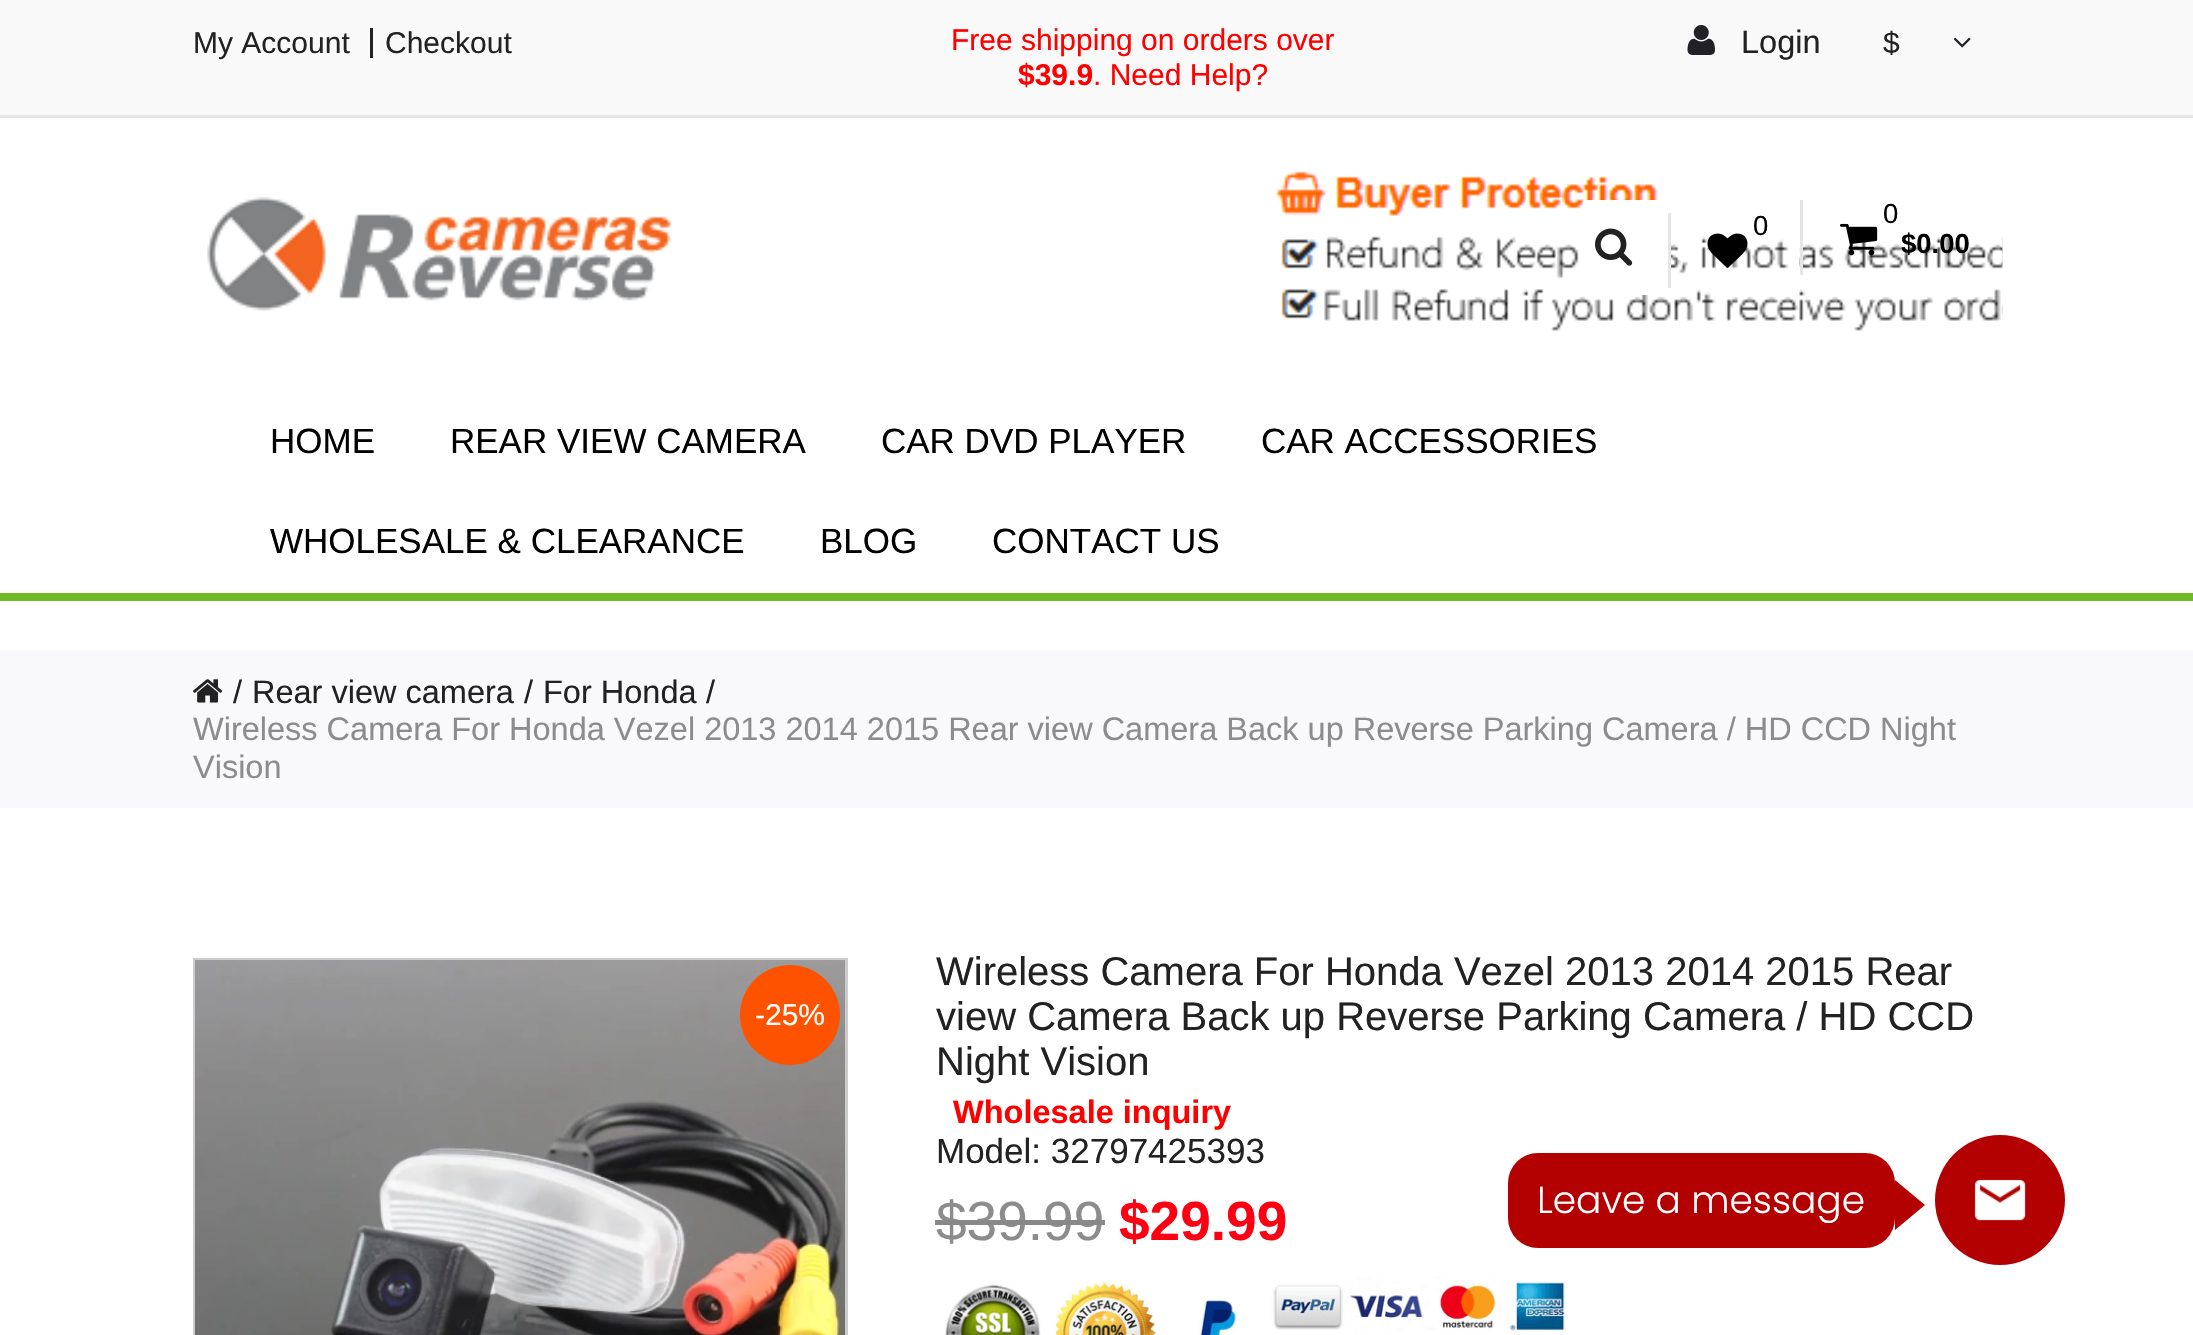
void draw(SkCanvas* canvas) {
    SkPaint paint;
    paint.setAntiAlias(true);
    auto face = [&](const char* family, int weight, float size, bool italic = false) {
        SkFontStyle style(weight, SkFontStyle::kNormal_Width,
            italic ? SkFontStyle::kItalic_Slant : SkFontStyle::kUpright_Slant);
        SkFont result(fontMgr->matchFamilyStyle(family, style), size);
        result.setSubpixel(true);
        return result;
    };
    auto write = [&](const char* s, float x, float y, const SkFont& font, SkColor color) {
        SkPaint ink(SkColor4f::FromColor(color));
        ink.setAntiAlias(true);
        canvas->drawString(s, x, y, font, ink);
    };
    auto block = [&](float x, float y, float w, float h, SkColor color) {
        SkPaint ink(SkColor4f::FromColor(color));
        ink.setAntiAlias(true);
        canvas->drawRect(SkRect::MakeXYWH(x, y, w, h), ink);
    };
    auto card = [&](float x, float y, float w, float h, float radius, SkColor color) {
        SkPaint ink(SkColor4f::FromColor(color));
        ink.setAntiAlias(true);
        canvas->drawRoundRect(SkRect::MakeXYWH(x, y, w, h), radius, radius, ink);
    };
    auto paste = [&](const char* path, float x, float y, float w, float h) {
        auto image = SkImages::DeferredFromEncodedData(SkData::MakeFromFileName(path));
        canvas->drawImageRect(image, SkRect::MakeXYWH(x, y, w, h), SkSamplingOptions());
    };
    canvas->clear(SK_ColorWHITE);
    block(0, 593, 2193, 8, SkColorSetRGB(112, 186, 40));
    block(0, 0, 2193, 115, SkColorSetRGB(249, 249, 250));
    block(0, 115, 2193, 3, SkColorSetRGB(229, 229, 229));
    auto kFont1 = face("Liberation Sans", 400, 30);
    write("My Account", 193, 53, kFont1, SkColorSetRGB(34, 34, 34));
    block(370, 28, 3, 30, SkColorSetRGB(34, 34, 34));
    write("Checkout", 385, 53, kFont1, SkColorSetRGB(34, 34, 34));
    write("Free shipping on orders over", 951, 50, kFont1, SkColorSetRGB(255, 0, 0));
    auto kFont2 = face("Liberation Sans", 700, 30);
    write("$39.9", 1018, 85, kFont2, SkColorSetRGB(255, 0, 0));
    write(". Need Help?", 1093, 85, kFont1, SkColorSetRGB(255, 0, 0));
    paste("pic1.png", 1687, 25, 28, 30);
    auto kFont3 = face("Liberation Sans", 400, 32.5f);
    write("Login", 1741, 53, kFont3, SkColorSetRGB(34, 34, 34));
    write("$", 1883, 53, kFont1, SkColorSetRGB(34, 34, 34));
    paste("pic2.png", 1953, 37, 18, 11);
    paste("pic3.png", 1276, 171, 727, 160);
    paste("pic4.png", 207, 197, 464, 114);
    block(1583, 200, 85, 95, SK_ColorWHITE);
    paste("pic5.png", 1595, 228, 38, 38);
    block(1668, 213, 3, 75, SkColorSetRGB(229, 229, 229));
    paste("pic6.png", 1707, 233, 41, 35);
    auto kFont4 = face("Liberation Sans", 400, 27.5f);
    write("0", 1753, 235, kFont4, SK_ColorBLACK);
    block(1800, 200, 3, 75, SkColorSetRGB(229, 229, 229));
    paste("pic7.png", 1840, 223, 38, 33);
    write("0", 1883, 223, kFont4, SK_ColorBLACK);
    auto kFont5 = face("Liberation Sans", 700, 27.5f);
    write("$0.00", 1901, 253, kFont5, SK_ColorBLACK);
    auto kFont6 = face("Liberation Sans", 400, 35);
    write("HOME", 270, 453, kFont6, SK_ColorBLACK);
    write("REAR VIEW CAMERA", 450, 453, kFont6, SK_ColorBLACK);
    write("CAR DVD PLAYER", 881, 453, kFont6, SK_ColorBLACK);
    write("CAR ACCESSORIES", 1261, 453, kFont6, SK_ColorBLACK);
    write("WHOLESALE & CLEARANCE", 270, 553, kFont6, SK_ColorBLACK);
    write("BLOG", 820, 553, kFont6, SK_ColorBLACK);
    write("CONTACT US", 992, 553, kFont6, SK_ColorBLACK);
    block(0, 650, 2193, 158, SkColorSetRGB(249, 249, 251));
    paste("pic8.png", 193, 679, 30, 24);
    write("/", 233, 703, kFont3, SkColorSetRGB(34, 34, 34));
    write("Rear view camera", 252, 703, kFont3, SkColorSetRGB(34, 34, 34));
    write("/", 524, 703, kFont3, SkColorSetRGB(34, 34, 34));
    write("For Honda", 543, 703, kFont3, SkColorSetRGB(34, 34, 34));
    write("/", 706, 703, kFont3, SkColorSetRGB(34, 34, 34));
    write("Wireless Camera For Honda Vezel 2013 2014 2015 Rear view Camera Back up Reverse Parking Camera / HD CCD Night", 193, 740, kFont3, SkColorSetRGB(140, 140, 140));
    write("Vision", 193, 778, kFont3, SkColorSetRGB(140, 140, 140));
    paint.setStyle(SkPaint::kStroke_Style);
    paint.setStrokeWidth(3);
    paint.setColor(SkColorSetRGB(204, 204, 204));
    canvas->drawRect(SkRect::MakeXYWH(194.5f, 959.5f, 652, 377), paint);
    paste("pic9.png", 195, 960, 650, 375);
    paint.setStyle(SkPaint::kFill_Style);
    paint.setColor(SkColorSetRGB(253, 83, 0));
    canvas->drawCircle(790, 1015, 50, paint);
    write("-25%", 755, 1025, kFont1, SK_ColorWHITE);
    auto kFont7 = face("Liberation Sans", 400, 40);
    write("Wireless Camera For Honda Vezel 2013 2014 2015 Rear", 936, 985, kFont7, SkColorSetRGB(34, 34, 34));
    write("view Camera Back up Reverse Parking Camera / HD CCD", 936, 1030, kFont7, SkColorSetRGB(34, 34, 34));
    write("Night Vision", 936, 1075, kFont7, SkColorSetRGB(34, 34, 34));
    auto kFont8 = face("Liberation Sans", 700, 32.5f);
    write("Wholesale inquiry", 953, 1123, kFont8, SkColorSetRGB(255, 0, 0));
    write("Model: 32797425393", 936, 1163, kFont6, SkColorSetRGB(34, 34, 34));
    auto kFont9 = face("Liberation Sans", 400, 55);
    write("$39.99", 936, 1240, kFont9, SkColorSetRGB(140, 140, 140));
    block(935, 1220, 170, 5, SkColorSetRGB(136, 136, 136));
    auto kFont10 = face("Liberation Sans", 700, 55);
    write("$29.99", 1119, 1240, kFont10, SkColorSetRGB(255, 0, 18));
    paste("pic10.png", 945, 1277, 620, 58);
    paint.setColor(SkColorSetRGB(179, 0, 0));
    canvas->drawCircle(2000, 1200, 65, paint);
    card(1508, 1153, 387, 95, 30, SkColorSetRGB(179, 0, 0));
    auto kFont11 = face("Poppins", 300, 37.5f);
    write("Leave a message", 1537, 1213, kFont11, SK_ColorWHITE);
    canvas->drawPath(SkPathBuilder().moveTo(1895, 1230).lineTo(1895, 1180).lineTo(1925, 1205).close().detach(), paint);
    paste("pic11.png", 1974, 1179, 52, 42);
}
